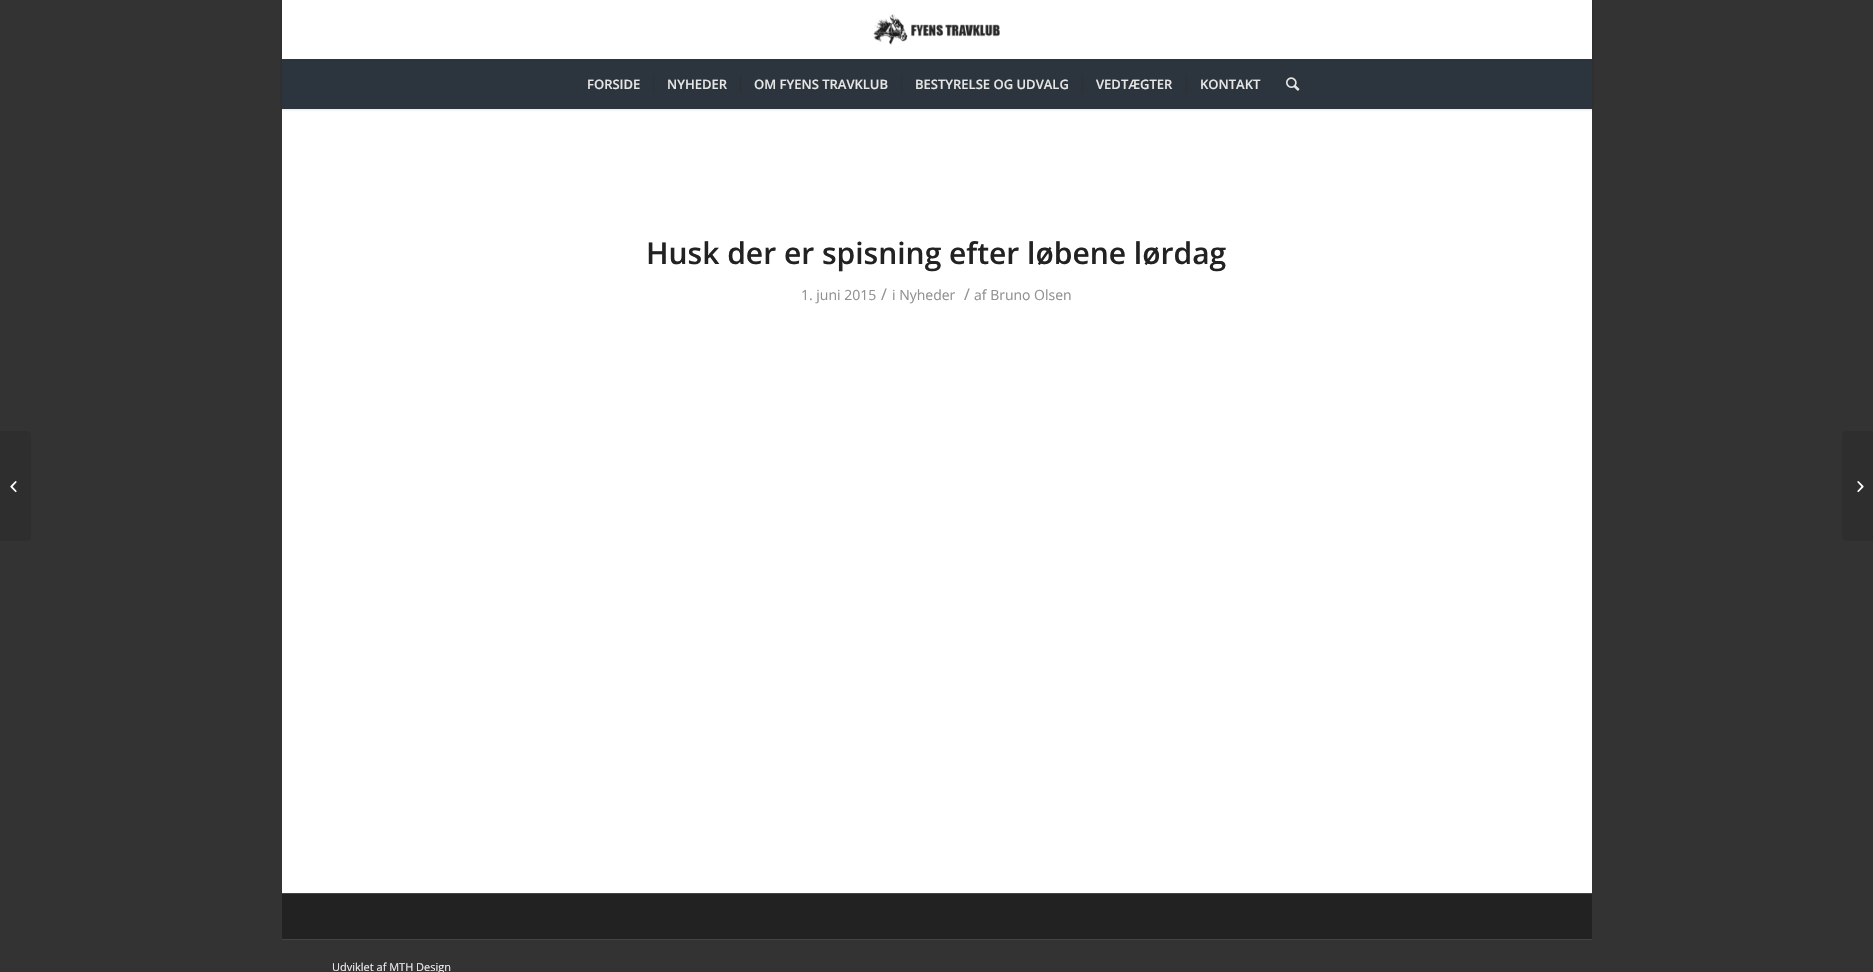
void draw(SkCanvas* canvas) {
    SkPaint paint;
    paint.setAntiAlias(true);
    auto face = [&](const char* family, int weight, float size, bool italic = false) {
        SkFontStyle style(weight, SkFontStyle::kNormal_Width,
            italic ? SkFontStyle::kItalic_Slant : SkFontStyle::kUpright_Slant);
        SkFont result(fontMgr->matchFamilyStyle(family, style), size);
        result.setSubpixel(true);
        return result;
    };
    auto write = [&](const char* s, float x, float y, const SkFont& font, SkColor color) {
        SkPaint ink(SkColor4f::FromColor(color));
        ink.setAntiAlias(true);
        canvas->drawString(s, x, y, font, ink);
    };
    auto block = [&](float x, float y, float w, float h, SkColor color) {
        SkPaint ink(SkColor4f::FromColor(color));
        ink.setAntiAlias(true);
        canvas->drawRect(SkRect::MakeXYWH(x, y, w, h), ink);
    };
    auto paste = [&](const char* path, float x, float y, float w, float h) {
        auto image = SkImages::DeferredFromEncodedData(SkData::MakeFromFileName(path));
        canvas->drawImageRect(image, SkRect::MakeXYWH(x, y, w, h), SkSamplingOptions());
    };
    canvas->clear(SkColorSetRGB(51, 51, 51));
    block(282, 0, 1310, 893, SK_ColorWHITE);
    canvas->save();
    canvas->clipPath(SkPathBuilder(SkPathFillType::kEvenOdd).moveTo(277, 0).lineTo(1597, 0).lineTo(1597, 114).lineTo(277, 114).close().moveTo(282, 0).lineTo(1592, 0).lineTo(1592, 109).lineTo(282, 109).close().detach(), true);
    paint.setColor(SkColorSetARGB(26, 0, 0, 0));
    paint.setMaskFilter(SkMaskFilter::MakeBlur(kNormal_SkBlurStyle, 1));
    canvas->drawRect(SkRect::MakeXYWH(281, -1, 1312, 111), paint);
    paint.setMaskFilter(nullptr);
    canvas->restore();
    paste("pic1.png", 873, 14, 127, 31);
    block(282, 59, 1310, 50, SkColorSetRGB(44, 53, 61));
    auto kFont1 = face("Open Sans", 600, 13);
    write("FORSIDE", 587, 89, kFont1, SkColorSetRGB(230, 230, 230));
    write("NYHEDER", 667, 89, kFont1, SkColorSetRGB(230, 230, 230));
    block(653, 75, 1, 18, SkColorSetRGB(44, 48, 51));
    write("OM FYENS TRAVKLUB", 754, 89, kFont1, SkColorSetRGB(230, 230, 230));
    block(740, 75, 1, 18, SkColorSetRGB(44, 48, 51));
    write("BESTYRELSE OG UDVALG", 915, 89, kFont1, SkColorSetRGB(230, 230, 230));
    block(901, 75, 1, 18, SkColorSetRGB(44, 48, 51));
    write("VEDTÆGTER", 1096, 89, kFont1, SkColorSetRGB(230, 230, 230));
    block(1082, 75, 1, 18, SkColorSetRGB(44, 48, 51));
    write("KONTAKT", 1200, 89, kFont1, SkColorSetRGB(230, 230, 230));
    block(1186, 75, 1, 18, SkColorSetRGB(44, 48, 51));
    paste("pic2.png", 1286, 77, 14, 14);
    paint.setColor(SkColorSetRGB(46, 46, 46));
    canvas->drawPath(SkPathBuilder().moveTo(0, 431).lineTo(27, 431).cubicTo(29, 431, 31, 433, 31, 435).lineTo(31, 537).cubicTo(31, 539, 29, 541, 27, 541).lineTo(0, 541).close().detach(), paint);
    paste("pic3.png", 10, 481, 7, 12);
    auto kFont2 = face("Open Sans", 600, 30);
    write("Husk der er spisning efter løbene lørdag", 646, 264, kFont2, SkColorSetRGB(34, 34, 34));
    auto kFont3 = face("Open Sans", 400, 14);
    write("1. juni 2015", 801, 300, kFont3, SkColorSetRGB(145, 145, 145));
    auto kFont4 = face("Open Sans", 400, 16);
    write("/", 881, 300, kFont4, SkColorSetRGB(145, 145, 145));
    write("i Nyheder", 892, 300, kFont3, SkColorSetRGB(145, 145, 145));
    write("/", 964, 300, kFont4, SkColorSetRGB(145, 145, 145));
    write("af Bruno Olsen", 974, 300, kFont3, SkColorSetRGB(145, 145, 145));
    block(282, 894, 1310, 45, SkColorSetRGB(34, 34, 34));
    block(282, 893, 1310, 1, SkColorSetRGB(68, 68, 68));
    block(282, 939, 1310, 1, SkColorSetRGB(68, 68, 68));
    auto kFont5 = face("Open Sans", 400, 11);
    write("Udviklet af MTH Design", 332, 971, kFont5, SkColorSetRGB(238, 238, 238));
    canvas->drawPath(SkPathBuilder().moveTo(1846, 431).lineTo(1873, 431).lineTo(1873, 541).lineTo(1846, 541).cubicTo(1844, 541, 1842, 539, 1842, 537).lineTo(1842, 435).cubicTo(1842, 433, 1844, 431, 1846, 431).close().detach(), paint);
    paste("pic4.png", 1857, 481, 7, 12);
}
